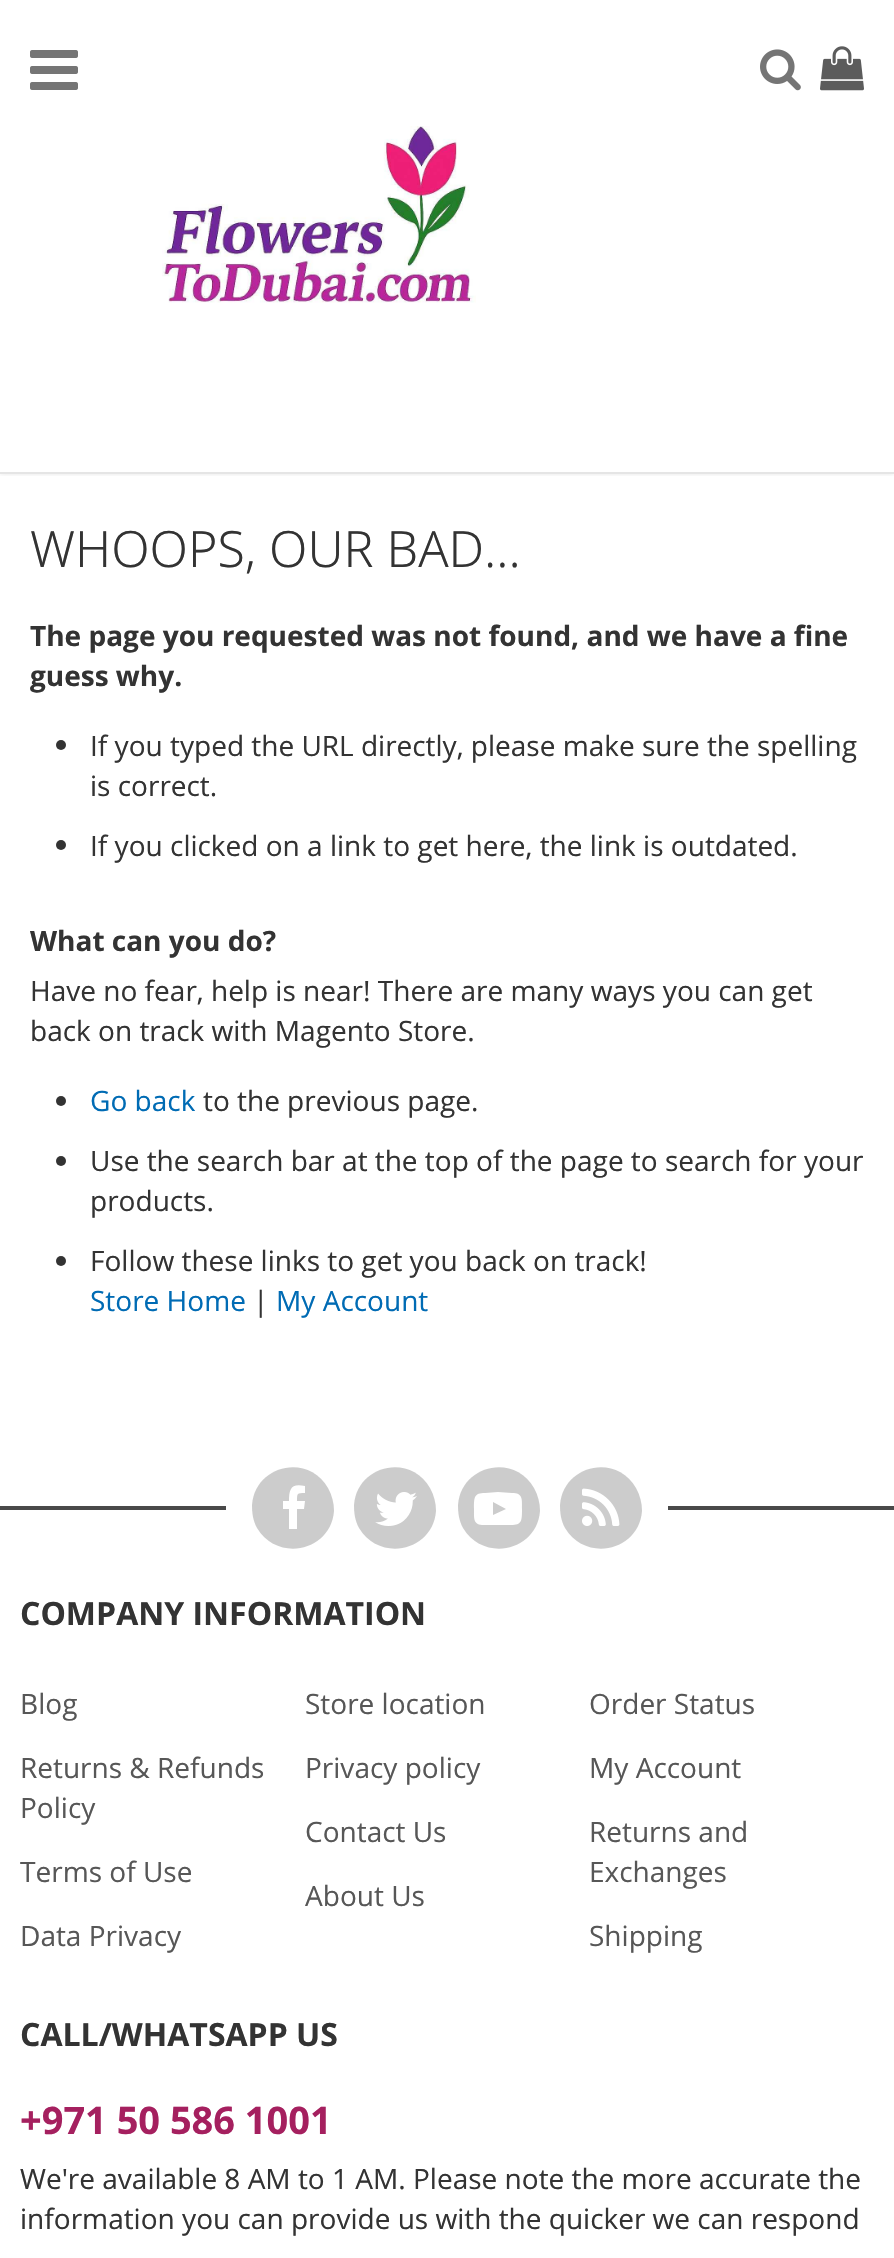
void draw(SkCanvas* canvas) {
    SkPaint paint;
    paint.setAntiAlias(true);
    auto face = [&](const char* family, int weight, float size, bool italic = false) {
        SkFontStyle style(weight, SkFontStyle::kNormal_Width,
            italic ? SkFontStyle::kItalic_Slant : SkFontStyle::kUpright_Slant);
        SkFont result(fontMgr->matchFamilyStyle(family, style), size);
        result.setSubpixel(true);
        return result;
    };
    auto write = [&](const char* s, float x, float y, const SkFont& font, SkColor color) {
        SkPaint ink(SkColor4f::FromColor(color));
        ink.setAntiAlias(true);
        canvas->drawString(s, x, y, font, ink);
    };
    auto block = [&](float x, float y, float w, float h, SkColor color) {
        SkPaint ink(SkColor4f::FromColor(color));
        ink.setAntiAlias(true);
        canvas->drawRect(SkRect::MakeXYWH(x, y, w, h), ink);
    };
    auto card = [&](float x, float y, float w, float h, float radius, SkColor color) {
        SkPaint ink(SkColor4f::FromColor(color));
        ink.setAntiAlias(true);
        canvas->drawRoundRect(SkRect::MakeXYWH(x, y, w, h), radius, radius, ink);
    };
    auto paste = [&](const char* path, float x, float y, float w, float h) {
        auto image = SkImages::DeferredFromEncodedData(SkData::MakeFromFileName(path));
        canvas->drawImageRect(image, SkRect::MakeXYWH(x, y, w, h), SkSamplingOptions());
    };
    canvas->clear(SK_ColorWHITE);
    canvas->save();
    canvas->clipRect(SkRect::MakeXYWH(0, 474, 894, 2));
    paint.setColor(SkColorSetARGB(51, 0, 0, 0));
    paint.setMaskFilter(SkMaskFilter::MakeBlur(kNormal_SkBlurStyle, 3));
    canvas->drawRect(SkRect::MakeXYWH(0, 0, 894, 472), paint);
    paint.setMaskFilter(nullptr);
    canvas->restore();
    paste("pic1.png", 820, 46, 44, 45);
    paste("pic2.png", 760, 49, 41, 42);
    block(0, 472, 894, 2, SkColorSetRGB(229, 229, 229));
    paste("pic3.png", 30, 50, 48, 40);
    paste("pic4.png", 162, 126, 314, 177);
    auto kFont1 = face("Noto Sans", 300, 50);
    write("WHOOPS, OUR BAD...", 30, 567, kFont1, SkColorSetRGB(51, 51, 51));
    auto kFont2 = face("Open Sans", 700, 28);
    write("The page you requested was not found, and we have a fine", 30, 646, kFont2, SkColorSetRGB(51, 51, 51));
    write("guess why.", 30, 686, kFont2, SkColorSetRGB(51, 51, 51));
    paint.setColor(SkColorSetRGB(51, 51, 51));
    canvas->drawCircle(61, 745, 5, paint);
    auto kFont3 = face("Open Sans", 400, 28);
    write("If you typed the URL directly, please make sure the spelling", 90, 756, kFont3, SkColorSetRGB(51, 51, 51));
    write("is correct.", 90, 796, kFont3, SkColorSetRGB(51, 51, 51));
    canvas->drawCircle(61, 845, 5, paint);
    write("If you clicked on a link to get here, the link is outdated.", 90, 856, kFont3, SkColorSetRGB(51, 51, 51));
    write("What can you do?", 30, 951, kFont2, SkColorSetRGB(51, 51, 51));
    write("Have no fear, help is near! There are many ways you can get", 30, 1001, kFont3, SkColorSetRGB(51, 51, 51));
    write("back on track with Magento Store.", 30, 1041, kFont3, SkColorSetRGB(51, 51, 51));
    canvas->drawCircle(61, 1101, 5, paint);
    write("Go back", 90, 1111, kFont3, SkColorSetRGB(0, 107, 180));
    write("to the previous page.", 203, 1111, kFont3, SkColorSetRGB(51, 51, 51));
    canvas->drawCircle(61, 1161, 5, paint);
    write("Use the search bar at the top of the page to search for your", 90, 1171, kFont3, SkColorSetRGB(51, 51, 51));
    write("products.", 90, 1211, kFont3, SkColorSetRGB(51, 51, 51));
    canvas->drawCircle(61, 1261, 5, paint);
    write("Follow these links to get you back on track!", 90, 1271, kFont3, SkColorSetRGB(51, 51, 51));
    write("Store Home", 90, 1311, kFont3, SkColorSetRGB(0, 107, 180));
    write("|", 253, 1311, kFont3, SkColorSetRGB(51, 51, 51));
    write("My Account", 276, 1311, kFont3, SkColorSetRGB(0, 107, 180));
    block(0, 1506, 894, 4, SkColorSetRGB(73, 73, 73));
    card(226, 1462, 442, 96, 10, SK_ColorWHITE);
    paint.setColor(SkColorSetRGB(204, 204, 204));
    canvas->drawPath(SkPathBuilder().moveTo(328, 1488).cubicTo(332, 1495, 334, 1503, 334, 1511).cubicTo(331, 1551, 278, 1563, 257, 1528).cubicTo(253, 1521, 252, 1513, 252, 1505).cubicTo(255, 1465, 308, 1453, 328, 1488).close().detach(), paint);
    paint.setColor(SK_ColorWHITE);
    canvas->drawPath(SkPathBuilder().moveTo(305, 1486).lineTo(305, 1493).cubicTo(297, 1493, 297, 1493, 297, 1501).lineTo(305, 1501).lineTo(304, 1509).lineTo(297, 1509).lineTo(297, 1529).lineTo(289, 1529).lineTo(289, 1509).lineTo(283, 1509).lineTo(283, 1501).lineTo(289, 1501).cubicTo(289, 1489, 291, 1483, 305, 1486).close().detach(), paint);
    paint.setColor(SkColorSetRGB(204, 204, 204));
    canvas->drawPath(SkPathBuilder().moveTo(430, 1488).cubicTo(434, 1495, 436, 1503, 436, 1511).cubicTo(433, 1551, 380, 1563, 359, 1528).cubicTo(355, 1521, 354, 1513, 354, 1505).cubicTo(357, 1465, 410, 1453, 430, 1488).close().detach(), paint);
    paste("pic5.png", 375, 1492, 42, 34);
    canvas->drawPath(SkPathBuilder().moveTo(534, 1488).cubicTo(538, 1495, 540, 1503, 540, 1511).cubicTo(537, 1551, 484, 1563, 463, 1528).cubicTo(459, 1521, 458, 1513, 458, 1505).cubicTo(461, 1465, 514, 1453, 534, 1488).close().detach(), paint);
    paint.setColor(SK_ColorWHITE);
    canvas->drawPath(SkPathBuilder().moveTo(493, 1515).lineTo(506, 1509).lineTo(493, 1502).close().moveTo(498, 1492).lineTo(512, 1493).cubicTo(523, 1493, 522, 1499, 522, 1509).cubicTo(522, 1521, 522, 1525, 511, 1525).lineTo(484, 1525).cubicTo(473, 1525, 474, 1519, 474, 1509).cubicTo(474, 1497, 474, 1493, 485, 1493).close().detach(), paint);
    paint.setColor(SkColorSetRGB(204, 204, 204));
    canvas->drawPath(SkPathBuilder().moveTo(636, 1488).cubicTo(640, 1495, 642, 1503, 642, 1511).cubicTo(639, 1551, 586, 1563, 565, 1528).cubicTo(561, 1521, 560, 1513, 560, 1505).cubicTo(563, 1465, 616, 1453, 636, 1488).close().detach(), paint);
    paste("pic6.png", 582, 1488, 38, 38);
    auto kFont4 = face("Open Sans", 700, 32);
    write("COMPANY INFORMATION", 20, 1625, kFont4, SkColorSetRGB(51, 51, 51));
    write("Blog", 20, 1714, kFont3, SkColorSetRGB(87, 87, 87));
    write("Returns & Refunds", 20, 1778, kFont3, SkColorSetRGB(87, 87, 87));
    write("Policy", 20, 1818, kFont3, SkColorSetRGB(87, 87, 87));
    write("Terms of Use", 20, 1882, kFont3, SkColorSetRGB(87, 87, 87));
    write("Data Privacy", 20, 1946, kFont3, SkColorSetRGB(87, 87, 87));
    write("Store location", 305, 1714, kFont3, SkColorSetRGB(87, 87, 87));
    write("Privacy policy", 305, 1778, kFont3, SkColorSetRGB(87, 87, 87));
    write("Contact Us", 305, 1842, kFont3, SkColorSetRGB(87, 87, 87));
    write("About Us", 305, 1906, kFont3, SkColorSetRGB(87, 87, 87));
    write("Order Status", 589, 1714, kFont3, SkColorSetRGB(87, 87, 87));
    write("My Account", 589, 1778, kFont3, SkColorSetRGB(87, 87, 87));
    write("Returns and", 589, 1842, kFont3, SkColorSetRGB(87, 87, 87));
    write("Exchanges", 589, 1882, kFont3, SkColorSetRGB(87, 87, 87));
    write("Shipping", 589, 1946, kFont3, SkColorSetRGB(87, 87, 87));
    write("CALL/WHATSAPP US", 20, 2046, kFont4, SkColorSetRGB(51, 51, 51));
    auto kFont5 = face("Open Sans", 700, 38);
    write("+971 50 586 1001", 20, 2134, kFont5, SkColorSetRGB(165, 32, 95));
    write("We're available 8 AM to 1 AM. Please note the more accurate the", 20, 2189, kFont3, SkColorSetRGB(51, 51, 51));
    write("information you can provide us with the quicker we can respond", 20, 2229, kFont3, SkColorSetRGB(51, 51, 51));
}
